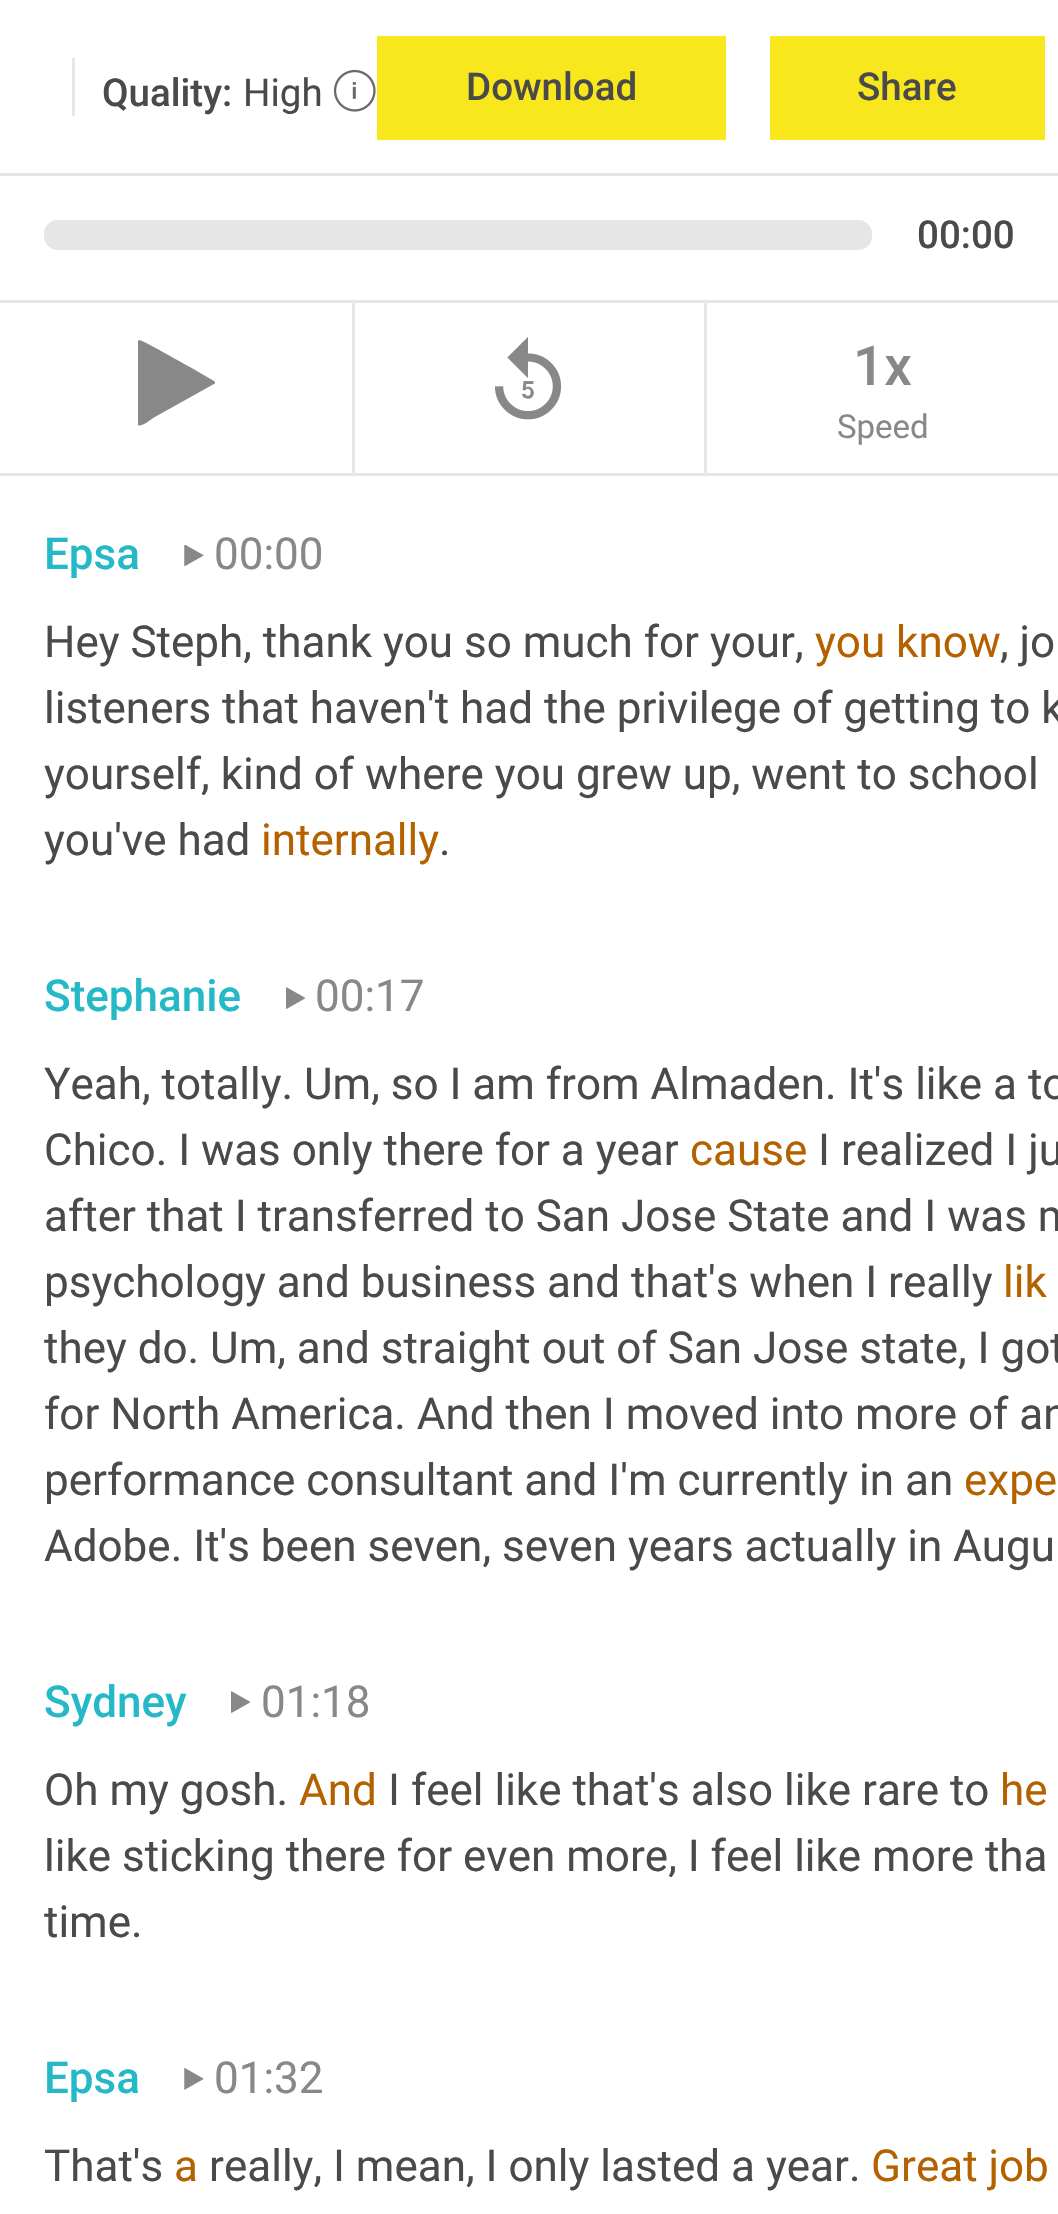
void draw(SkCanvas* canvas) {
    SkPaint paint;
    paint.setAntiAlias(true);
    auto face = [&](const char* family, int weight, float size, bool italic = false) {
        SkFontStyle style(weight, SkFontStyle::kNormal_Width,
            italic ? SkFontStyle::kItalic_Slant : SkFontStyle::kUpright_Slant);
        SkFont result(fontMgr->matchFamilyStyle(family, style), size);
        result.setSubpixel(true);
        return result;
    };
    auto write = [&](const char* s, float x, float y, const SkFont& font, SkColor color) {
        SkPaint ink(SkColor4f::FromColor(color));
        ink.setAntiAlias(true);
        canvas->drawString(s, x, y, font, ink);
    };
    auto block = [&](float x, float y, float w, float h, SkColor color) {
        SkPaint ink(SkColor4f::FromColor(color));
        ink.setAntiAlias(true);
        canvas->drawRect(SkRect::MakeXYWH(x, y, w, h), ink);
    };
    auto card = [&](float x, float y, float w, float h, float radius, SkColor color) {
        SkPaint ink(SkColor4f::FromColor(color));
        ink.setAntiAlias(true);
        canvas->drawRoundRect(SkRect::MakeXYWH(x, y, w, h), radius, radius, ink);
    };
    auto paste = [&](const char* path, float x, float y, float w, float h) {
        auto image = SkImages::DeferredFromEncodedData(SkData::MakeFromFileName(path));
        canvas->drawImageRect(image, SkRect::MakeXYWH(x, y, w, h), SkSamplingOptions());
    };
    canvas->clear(SK_ColorWHITE);
    block(0, 173, 1058, 3, SkColorSetRGB(230, 230, 230));
    block(72, 58, 3, 58, SkColorSetRGB(230, 230, 230));
    auto kFont1 = face("Roboto", 500, 38.5f);
    write("Quality:", 102, 106, kFont1, SkColorSetRGB(74, 74, 74));
    auto kFont2 = face("Roboto", 400, 38.5f);
    write("High", 243, 106, kFont2, SkColorSetRGB(74, 74, 74));
    paste("pic1.png", 333, 69, 43, 43);
    block(377, 36, 349, 104, SkColorSetRGB(248, 231, 28));
    write("Download", 466, 100, kFont1, SkColorSetRGB(74, 74, 74));
    block(770, 36, 275, 104, SkColorSetRGB(248, 231, 28));
    write("Share", 857, 100, kFont1, SkColorSetRGB(74, 74, 74));
    card(44, 220, 828, 30, 14, SkColorSetRGB(230, 230, 230));
    write("00:00", 917, 248, kFont1, SkColorSetRGB(74, 74, 74));
    block(0, 300, 1058, 3, SkColorSetRGB(230, 230, 230));
    block(352, 300, 3, 176, SkColorSetRGB(230, 230, 230));
    block(0, 473, 355, 3, SkColorSetRGB(230, 230, 230));
    paint.setColor(SkColorSetRGB(136, 136, 136));
    canvas->drawPath(SkPathBuilder().moveTo(214, 384).lineTo(153, 418).cubicTo(152, 419, 140, 428, 138, 425).lineTo(138, 341).lineTo(139, 340).cubicTo(141, 339, 184, 364, 190, 367).lineTo(214, 381).lineTo(215, 382).cubicTo(215, 383, 215, 384, 214, 384).close().detach(), paint);
    block(704, 300, 3, 176, SkColorSetRGB(230, 230, 230));
    block(355, 473, 703, 3, SkColorSetRGB(230, 230, 230));
    paste("pic2.png", 495, 337, 67, 83);
    auto kFont3 = face("Roboto", 500, 55);
    write("1x", 853, 385, kFont3, SkColorSetRGB(136, 136, 136));
    auto kFont4 = face("Roboto", 400, 33);
    write("Speed", 837, 438, kFont4, SkColorSetRGB(136, 136, 136));
    auto kFont5 = face("Roboto", 500, 44);
    write("Epsa", 44, 569, kFont5, SkColorSetRGB(37, 185, 200));
    paste("pic3.png", 184, 545, 20, 22);
    auto kFont6 = face("Roboto", 400, 44);
    write("00:00", 214, 569, kFont6, SkColorSetRGB(136, 136, 136));
    write("Hey Steph, thank you so much for your,", 44, 657, kFont6, SkColorSetRGB(74, 74, 74));
    write("you know", 815, 657, kFont6, SkColorSetRGB(180, 97, 0));
    write(", jo", 1000, 657, kFont6, SkColorSetRGB(74, 74, 74));
    write("listeners that haven't had the privilege of getting to k", 44, 723, kFont6, SkColorSetRGB(74, 74, 74));
    write("yourself, kind of where you grew up, went to school", 44, 789, kFont6, SkColorSetRGB(74, 74, 74));
    write("you've had", 44, 855, kFont6, SkColorSetRGB(74, 74, 74));
    write("internally", 261, 855, kFont6, SkColorSetRGB(180, 97, 0));
    write(".", 439, 855, kFont6, SkColorSetRGB(74, 74, 74));
    write("Stephanie", 44, 1011, kFont5, SkColorSetRGB(37, 185, 200));
    paste("pic4.png", 286, 987, 19, 22);
    write("00:17", 315, 1011, kFont6, SkColorSetRGB(136, 136, 136));
    write("Yeah, totally. Um, so I am from Almaden. It's like a to", 44, 1099, kFont6, SkColorSetRGB(74, 74, 74));
    write("Chico. I was only there for a year", 44, 1165, kFont6, SkColorSetRGB(74, 74, 74));
    write("cause", 690, 1165, kFont6, SkColorSetRGB(180, 97, 0));
    write("I realized I ju", 818, 1165, kFont6, SkColorSetRGB(74, 74, 74));
    write("after that I transferred to San Jose State and I was m", 44, 1231, kFont6, SkColorSetRGB(74, 74, 74));
    write("psychology and business and that's when I really", 44, 1297, kFont6, SkColorSetRGB(74, 74, 74));
    write("lik", 1003, 1297, kFont6, SkColorSetRGB(180, 97, 0));
    write("they do. Um, and straight out of San Jose state, I got", 44, 1363, kFont6, SkColorSetRGB(74, 74, 74));
    write("for North America. And then I moved into more of an", 44, 1429, kFont6, SkColorSetRGB(74, 74, 74));
    write("performance consultant and I'm currently in an", 44, 1495, kFont6, SkColorSetRGB(74, 74, 74));
    write("expe", 964, 1495, kFont6, SkColorSetRGB(180, 97, 0));
    write("Adobe. It's been seven, seven years actually in Augu", 44, 1561, kFont6, SkColorSetRGB(74, 74, 74));
    write("Sydney", 44, 1717, kFont5, SkColorSetRGB(37, 185, 200));
    paste("pic4.png", 231, 1691, 19, 22);
    write("01:18", 261, 1717, kFont6, SkColorSetRGB(136, 136, 136));
    write("Oh my gosh.", 44, 1805, kFont6, SkColorSetRGB(74, 74, 74));
    write("And", 299, 1805, kFont6, SkColorSetRGB(180, 97, 0));
    write("I feel like that's also like rare to", 388, 1805, kFont6, SkColorSetRGB(74, 74, 74));
    write("he", 1000, 1805, kFont6, SkColorSetRGB(180, 97, 0));
    write("like sticking there for even more, I feel like more tha", 44, 1871, kFont6, SkColorSetRGB(74, 74, 74));
    write("time.", 44, 1937, kFont6, SkColorSetRGB(74, 74, 74));
    write("Epsa", 44, 2093, kFont5, SkColorSetRGB(37, 185, 200));
    paste("pic5.png", 184, 2068, 20, 22);
    write("01:32", 214, 2093, kFont6, SkColorSetRGB(136, 136, 136));
    write("That's", 44, 2181, kFont6, SkColorSetRGB(74, 74, 74));
    write("a", 174, 2181, kFont6, SkColorSetRGB(180, 97, 0));
    write("really, I mean, I only lasted a year.", 209, 2181, kFont6, SkColorSetRGB(74, 74, 74));
    write("Great job", 871, 2181, kFont6, SkColorSetRGB(180, 97, 0));
}
